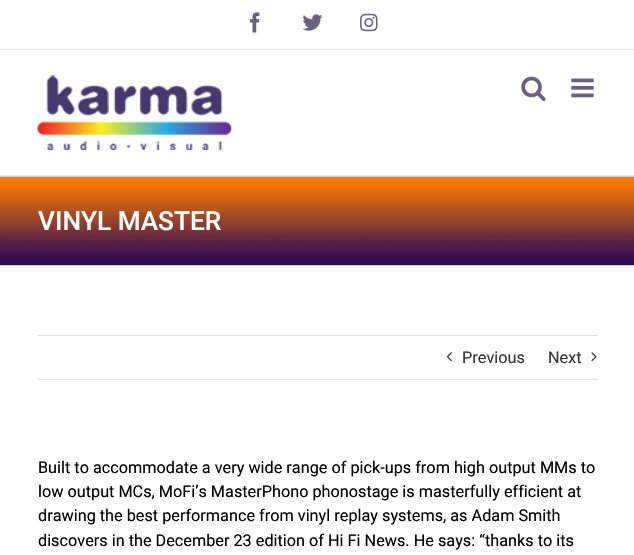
void draw(SkCanvas* canvas) {
    SkPaint paint;
    paint.setAntiAlias(true);
    auto face = [&](const char* family, int weight, float size, bool italic = false) {
        SkFontStyle style(weight, SkFontStyle::kNormal_Width,
            italic ? SkFontStyle::kItalic_Slant : SkFontStyle::kUpright_Slant);
        SkFont result(fontMgr->matchFamilyStyle(family, style), size);
        result.setSubpixel(true);
        return result;
    };
    auto write = [&](const char* s, float x, float y, const SkFont& font, SkColor color) {
        SkPaint ink(SkColor4f::FromColor(color));
        ink.setAntiAlias(true);
        canvas->drawString(s, x, y, font, ink);
    };
    auto block = [&](float x, float y, float w, float h, SkColor color) {
        SkPaint ink(SkColor4f::FromColor(color));
        ink.setAntiAlias(true);
        canvas->drawRect(SkRect::MakeXYWH(x, y, w, h), ink);
    };
    auto paste = [&](const char* path, float x, float y, float w, float h) {
        auto image = SkImages::DeferredFromEncodedData(SkData::MakeFromFileName(path));
        canvas->drawImageRect(image, SkRect::MakeXYWH(x, y, w, h), SkSamplingOptions());
    };
    canvas->clear(SK_ColorWHITE);
    block(0, 49, 634, 1, SkColorSetRGB(229, 229, 229));
    paste("pic1.png", 250, 12, 10, 21);
    paste("pic2.png", 302, 14, 21, 17);
    paste("pic3.png", 360, 13, 18, 19);
    block(0, 175, 634, 1, SkColorSetRGB(229, 229, 229));
    paste("pic4.png", 37, 75, 195, 75);
    paste("pic5.png", 521, 76, 25, 25);
    paste("pic6.png", 571, 78, 23, 20);
    paste("pic7.png", 0, 177, 634, 88);
    block(0, 176, 634, 1, SkColorSetRGB(210, 211, 212));
    block(0, 265, 634, 1, SkColorSetRGB(210, 211, 212));
    auto kFont1 = face("Roboto", 500, 26.25f);
    write("VINYL MASTER", 38, 230, kFont1, SK_ColorWHITE);
    block(38, 335, 560, 1, SkColorSetRGB(224, 222, 222));
    block(38, 379, 560, 1, SkColorSetRGB(224, 222, 222));
    paste("pic8.png", 446, 352, 6, 10);
    auto kFont2 = face("Roboto", 400, 16.25f);
    write("Previous", 462, 363, kFont2, SkColorSetRGB(51, 51, 51));
    write("Next", 548, 363, kFont2, SkColorSetRGB(51, 51, 51));
    paste("pic9.png", 591, 352, 6, 10);
    write("Built to accommodate a very wide range of pick-ups from high output MMs to", 38, 473, kFont2, SK_ColorBLACK);
    write("low output MCs, MoFi’s MasterPhono phonostage is masterfully efficient at", 38, 497, kFont2, SK_ColorBLACK);
    write("drawing the best performance from vinyl replay systems, as Adam Smith", 38, 521, kFont2, SK_ColorBLACK);
    write("discovers in the December 23 edition of Hi Fi News. He says: “thanks to its", 38, 546, kFont2, SK_ColorBLACK);
}
